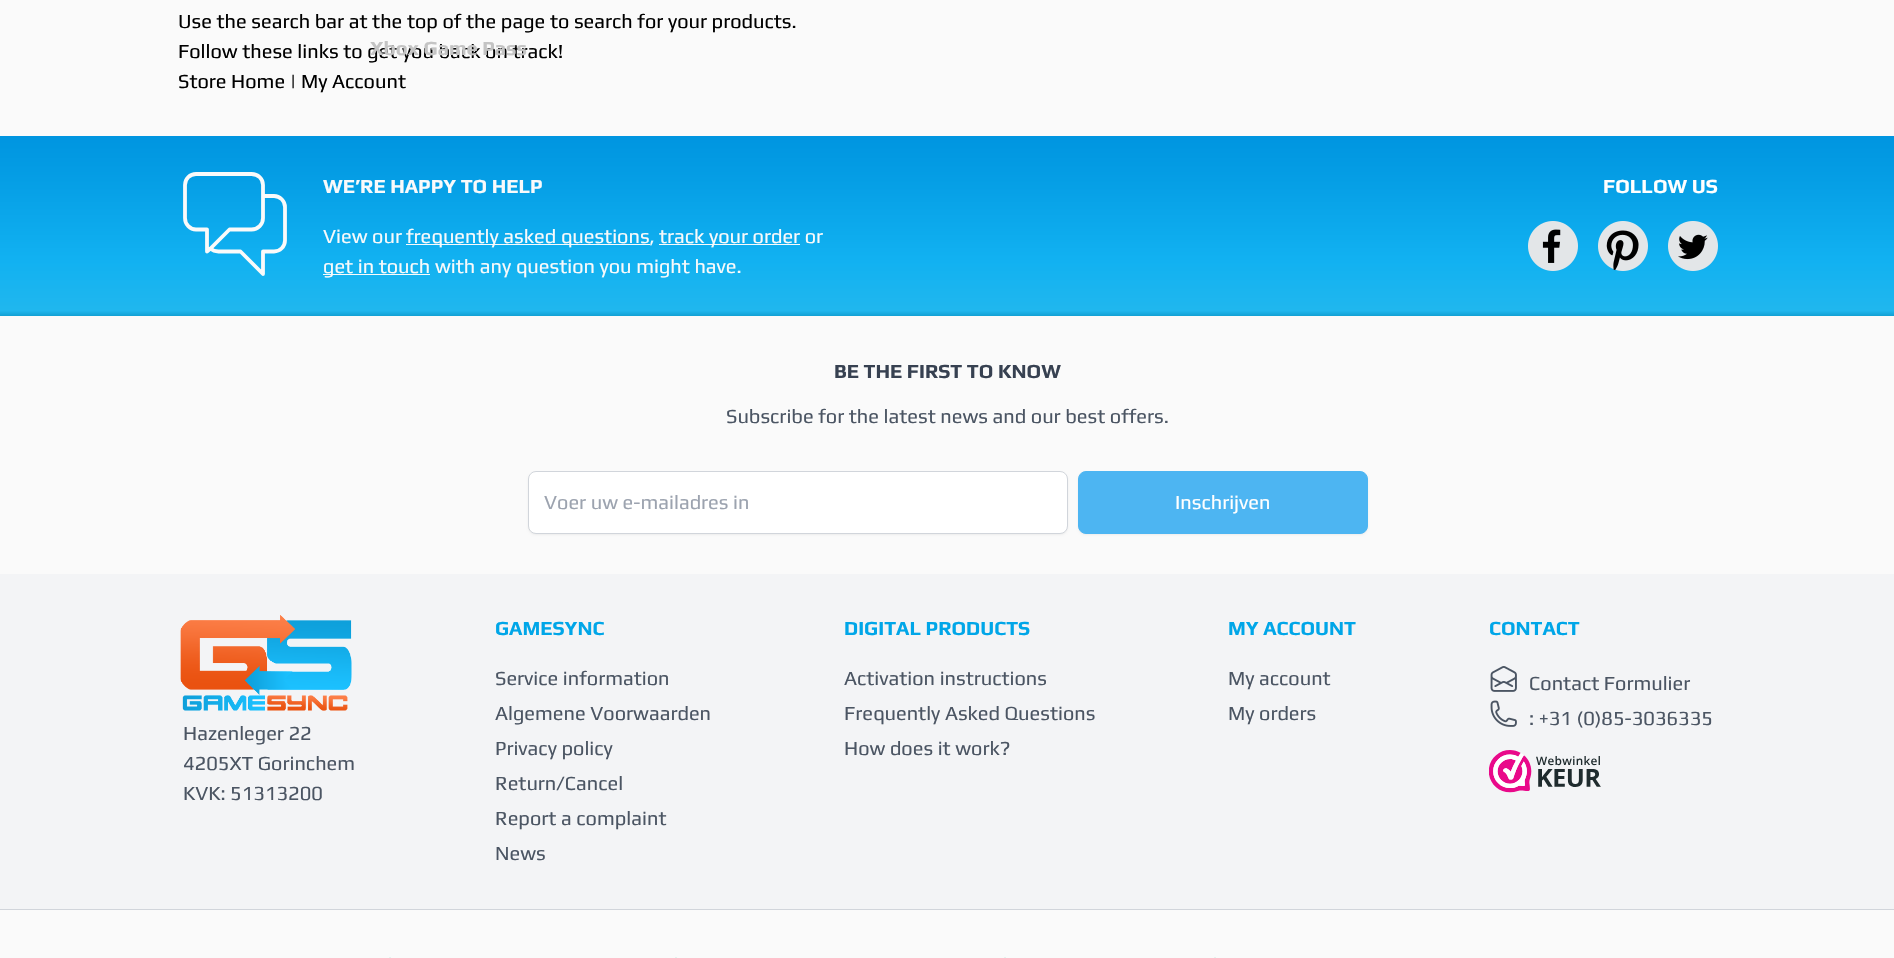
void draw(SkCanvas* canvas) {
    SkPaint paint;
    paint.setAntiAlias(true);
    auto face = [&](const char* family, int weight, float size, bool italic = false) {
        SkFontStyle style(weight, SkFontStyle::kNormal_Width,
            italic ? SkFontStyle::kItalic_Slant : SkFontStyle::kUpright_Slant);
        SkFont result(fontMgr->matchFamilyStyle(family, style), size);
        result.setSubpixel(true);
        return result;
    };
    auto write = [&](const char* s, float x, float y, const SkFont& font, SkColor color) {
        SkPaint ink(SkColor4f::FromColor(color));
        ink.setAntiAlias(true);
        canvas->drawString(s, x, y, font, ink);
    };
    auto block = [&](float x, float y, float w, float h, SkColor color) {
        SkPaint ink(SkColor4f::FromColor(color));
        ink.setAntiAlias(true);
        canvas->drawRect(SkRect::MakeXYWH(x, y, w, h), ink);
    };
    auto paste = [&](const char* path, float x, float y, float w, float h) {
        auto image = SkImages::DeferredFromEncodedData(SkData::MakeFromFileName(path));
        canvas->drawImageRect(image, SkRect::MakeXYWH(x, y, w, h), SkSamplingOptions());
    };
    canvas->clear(SkColorSetRGB(250, 250, 250));
    auto kFont1 = face("Play", 400, 20);
    write("Use the search bar at the top of the page to search for your products.", 178, 28, kFont1, SK_ColorBLACK);
    write("Follow these links to get you back on track!", 178, 58, kFont1, SK_ColorBLACK);
    write("Store Home | My Account", 178, 88, kFont1, SK_ColorBLACK);
    auto kFont2 = face("Play", 700, 20);
    write("Xbox Game Pass", 370, 55, kFont2, SkColorSetRGB(196, 196, 196));
    {
        const SkColor colors[] = {SkColorSetRGB(0, 149, 224), SkColorSetRGB(5, 158, 229), SkColorSetRGB(17, 177, 241), SkColorSetRGB(32, 183, 238), SkColorSetRGB(18, 160, 212)};
        const float stops[] = {0, 0.24f, 0.68f, 0.97f, 1};
        const SkPoint ends[] = {{948, 136}, {948, 316}};
        paint.setShader(SkGradientShader::MakeLinear(ends, colors, stops, 5, SkTileMode::kClamp));
        paint.setAlpha(255);
    }
    canvas->drawRect(SkRect::MakeXYWH(0, 136, 1894, 180), paint);
    paint.setStyle(SkPaint::kStroke_Style);
    paint.setStrokeWidth(3.8f);
    paint.setStrokeCap(SkPaint::kRound_Cap);
    paint.setStrokeJoin(SkPaint::kRound_Join);
    paint.setShader(nullptr);
    paint.setColor(SkColorSetRGB(250, 250, 250));
    canvas->drawPath(SkPathBuilder().moveTo(263, 196).lineTo(274, 196).cubicTo(280, 196, 285, 201, 285, 207).lineTo(285, 240.5f).cubicTo(285, 246.5f, 280, 251.5f, 274, 251.5f).lineTo(263, 251.5f).lineTo(263, 274).lineTo(240.5f, 251.5f).lineTo(218.5f, 251.5f).cubicTo(215.5f, 251.5f, 212.5f, 250.5f, 210.5f, 248.5f).moveTo(210.5f, 248.5f).lineTo(229.5f, 229.5f).lineTo(251.5f, 229.5f).cubicTo(258, 229.5f, 263, 224.5f, 263, 218).lineTo(263, 185).cubicTo(263, 178.5f, 258, 174, 251.5f, 174).lineTo(196, 174).cubicTo(190, 174, 185, 178.5f, 185, 185).lineTo(185, 218).cubicTo(185, 224.5f, 190, 229.5f, 196, 229.5f).lineTo(207, 229.5f).lineTo(207, 251.5f).close().detach(), paint);
    write("WE’RE HAPPY TO HELP", 323, 193, kFont2, SkColorSetRGB(249, 250, 251));
    write("View our", 323, 243, kFont1, SkColorSetRGB(249, 250, 251));
    block(406, 244, 244, 1, SkColorSetRGB(249, 250, 251));
    write("frequently asked questions,", 406, 243, kFont1, SkColorSetRGB(249, 250, 251));
    block(659, 244, 141, 1, SkColorSetRGB(249, 250, 251));
    write("track your order or", 659, 243, kFont1, SkColorSetRGB(249, 250, 251));
    block(323, 274, 107, 1, SkColorSetRGB(249, 250, 251));
    write("get in touch with any question you might have.", 323, 273, kFont1, SkColorSetRGB(249, 250, 251));
    write("FOLLOW US", 1603, 193, kFont2, SK_ColorWHITE);
    paste("pic1.png", 1528, 221, 50, 50);
    paste("pic2.png", 1598, 221, 50, 50);
    paste("pic3.png", 1668, 221, 50, 50);
    write("BE THE FIRST TO KNOW", 834, 378, kFont2, SkColorSetRGB(55, 65, 81));
    write("Subscribe for the latest news and our best offers.", 726, 423, kFont1, SkColorSetRGB(75, 85, 99));
    paint.setStyle(SkPaint::kFill_Style);
    paint.setColor(SkColorSetARGB(13, 0, 0, 0));
    paint.setMaskFilter(SkMaskFilter::MakeBlur(kNormal_SkBlurStyle, 1));
    canvas->drawRoundRect(SkRect::MakeXYWH(528, 473, 540, 62), 8, 8, paint);
    paint.setMaskFilter(nullptr);
    paint.setColor(SK_ColorWHITE);
    canvas->drawRoundRect(SkRect::MakeXYWH(528.5f, 471.5f, 539, 62), 7.5f, 7.5f, paint);
    paint.setStyle(SkPaint::kStroke_Style);
    paint.setStrokeWidth(1);
    paint.setStrokeCap(SkPaint::kButt_Cap);
    paint.setStrokeJoin(SkPaint::kMiter_Join);
    paint.setColor(SkColorSetRGB(209, 213, 219));
    canvas->drawRoundRect(SkRect::MakeXYWH(528.5f, 471.5f, 539, 62), 7.5f, 7.5f, paint);
    write("Voer uw e-mailadres in", 544, 509, kFont1, SkColorSetRGB(156, 163, 175));
    paint.setStyle(SkPaint::kFill_Style);
    paint.setColor(SkColorSetARGB(13, 0, 0, 0));
    paint.setMaskFilter(SkMaskFilter::MakeBlur(kNormal_SkBlurStyle, 1));
    canvas->drawRoundRect(SkRect::MakeXYWH(1078, 473, 290, 62), 8, 8, paint);
    paint.setMaskFilter(nullptr);
    paint.setColor(SkColorSetRGB(77, 181, 242));
    canvas->drawRoundRect(SkRect::MakeXYWH(1078.5f, 471.5f, 289, 62), 7.5f, 7.5f, paint);
    paint.setStyle(SkPaint::kStroke_Style);
    canvas->drawRoundRect(SkRect::MakeXYWH(1078.5f, 471.5f, 289, 62), 7.5f, 7.5f, paint);
    write("Inschrijven", 1175, 509, kFont1, SK_ColorWHITE);
    block(0, 574, 1894, 335, SkColorSetRGB(243, 244, 246));
    block(0, 909, 1894, 1, SkColorSetRGB(209, 213, 219));
    write("GAMESYNC", 495, 635, kFont2, SkColorSetRGB(0, 166, 232));
    write("Service information", 495, 685, kFont1, SkColorSetRGB(75, 85, 99));
    write("Algemene Voorwaarden", 495, 720, kFont1, SkColorSetRGB(75, 85, 99));
    write("Privacy policy", 495, 755, kFont1, SkColorSetRGB(75, 85, 99));
    write("Return/Cancel", 495, 790, kFont1, SkColorSetRGB(75, 85, 99));
    write("Report a complaint", 495, 825, kFont1, SkColorSetRGB(75, 85, 99));
    write("News", 495, 860, kFont1, SkColorSetRGB(75, 85, 99));
    write("DIGITAL PRODUCTS", 844, 635, kFont2, SkColorSetRGB(0, 166, 232));
    write("Activation instructions", 844, 685, kFont1, SkColorSetRGB(75, 85, 99));
    write("Frequently Asked Questions", 844, 720, kFont1, SkColorSetRGB(75, 85, 99));
    write("How does it work?", 844, 755, kFont1, SkColorSetRGB(75, 85, 99));
    write("MY ACCOUNT", 1228, 635, kFont2, SkColorSetRGB(0, 166, 232));
    write("My account", 1228, 685, kFont1, SkColorSetRGB(75, 85, 99));
    write("My orders", 1228, 720, kFont1, SkColorSetRGB(75, 85, 99));
    write("CONTACT", 1489, 635, kFont2, SkColorSetRGB(0, 166, 232));
    paste("pic4.png", 1490, 666, 27, 26);
    write("Contact Formulier", 1529, 690, kFont1, SkColorSetRGB(75, 85, 99));
    paste("pic5.png", 1490, 700, 27, 27);
    write(": +31 (0)85-3036335", 1529, 725, kFont1, SkColorSetRGB(75, 85, 99));
    paste("pic6.png", 1489, 750, 112, 43);
    paste("pic7.png", 180, 615, 172, 96);
    write("Hazenleger 22", 183, 740, kFont1, SkColorSetRGB(75, 85, 99));
    write("4205XT Gorinchem", 183, 770, kFont1, SkColorSetRGB(75, 85, 99));
    write("KVK: 51313200", 183, 800, kFont1, SkColorSetRGB(75, 85, 99));
    paint.setStrokeWidth(2.5f);
    paint.setStrokeCap(SkPaint::kRound_Cap);
    paint.setStrokeJoin(SkPaint::kRound_Join);
    paint.setColor(SkColorSetRGB(16, 185, 129));
    canvas->drawPath(SkPathBuilder().moveTo(372.5f, 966).lineTo(377.5f, 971).lineTo(390, 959).detach(), paint);
    canvas->drawPath(SkPathBuilder().moveTo(659, 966).lineTo(664, 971).lineTo(676, 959).detach(), paint);
    canvas->drawPath(SkPathBuilder().moveTo(987.5f, 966).lineTo(992.5f, 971).lineTo(1005, 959).detach(), paint);
    canvas->drawPath(SkPathBuilder().moveTo(1197.5f, 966).lineTo(1202.5f, 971).lineTo(1215, 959).detach(), paint);
}
